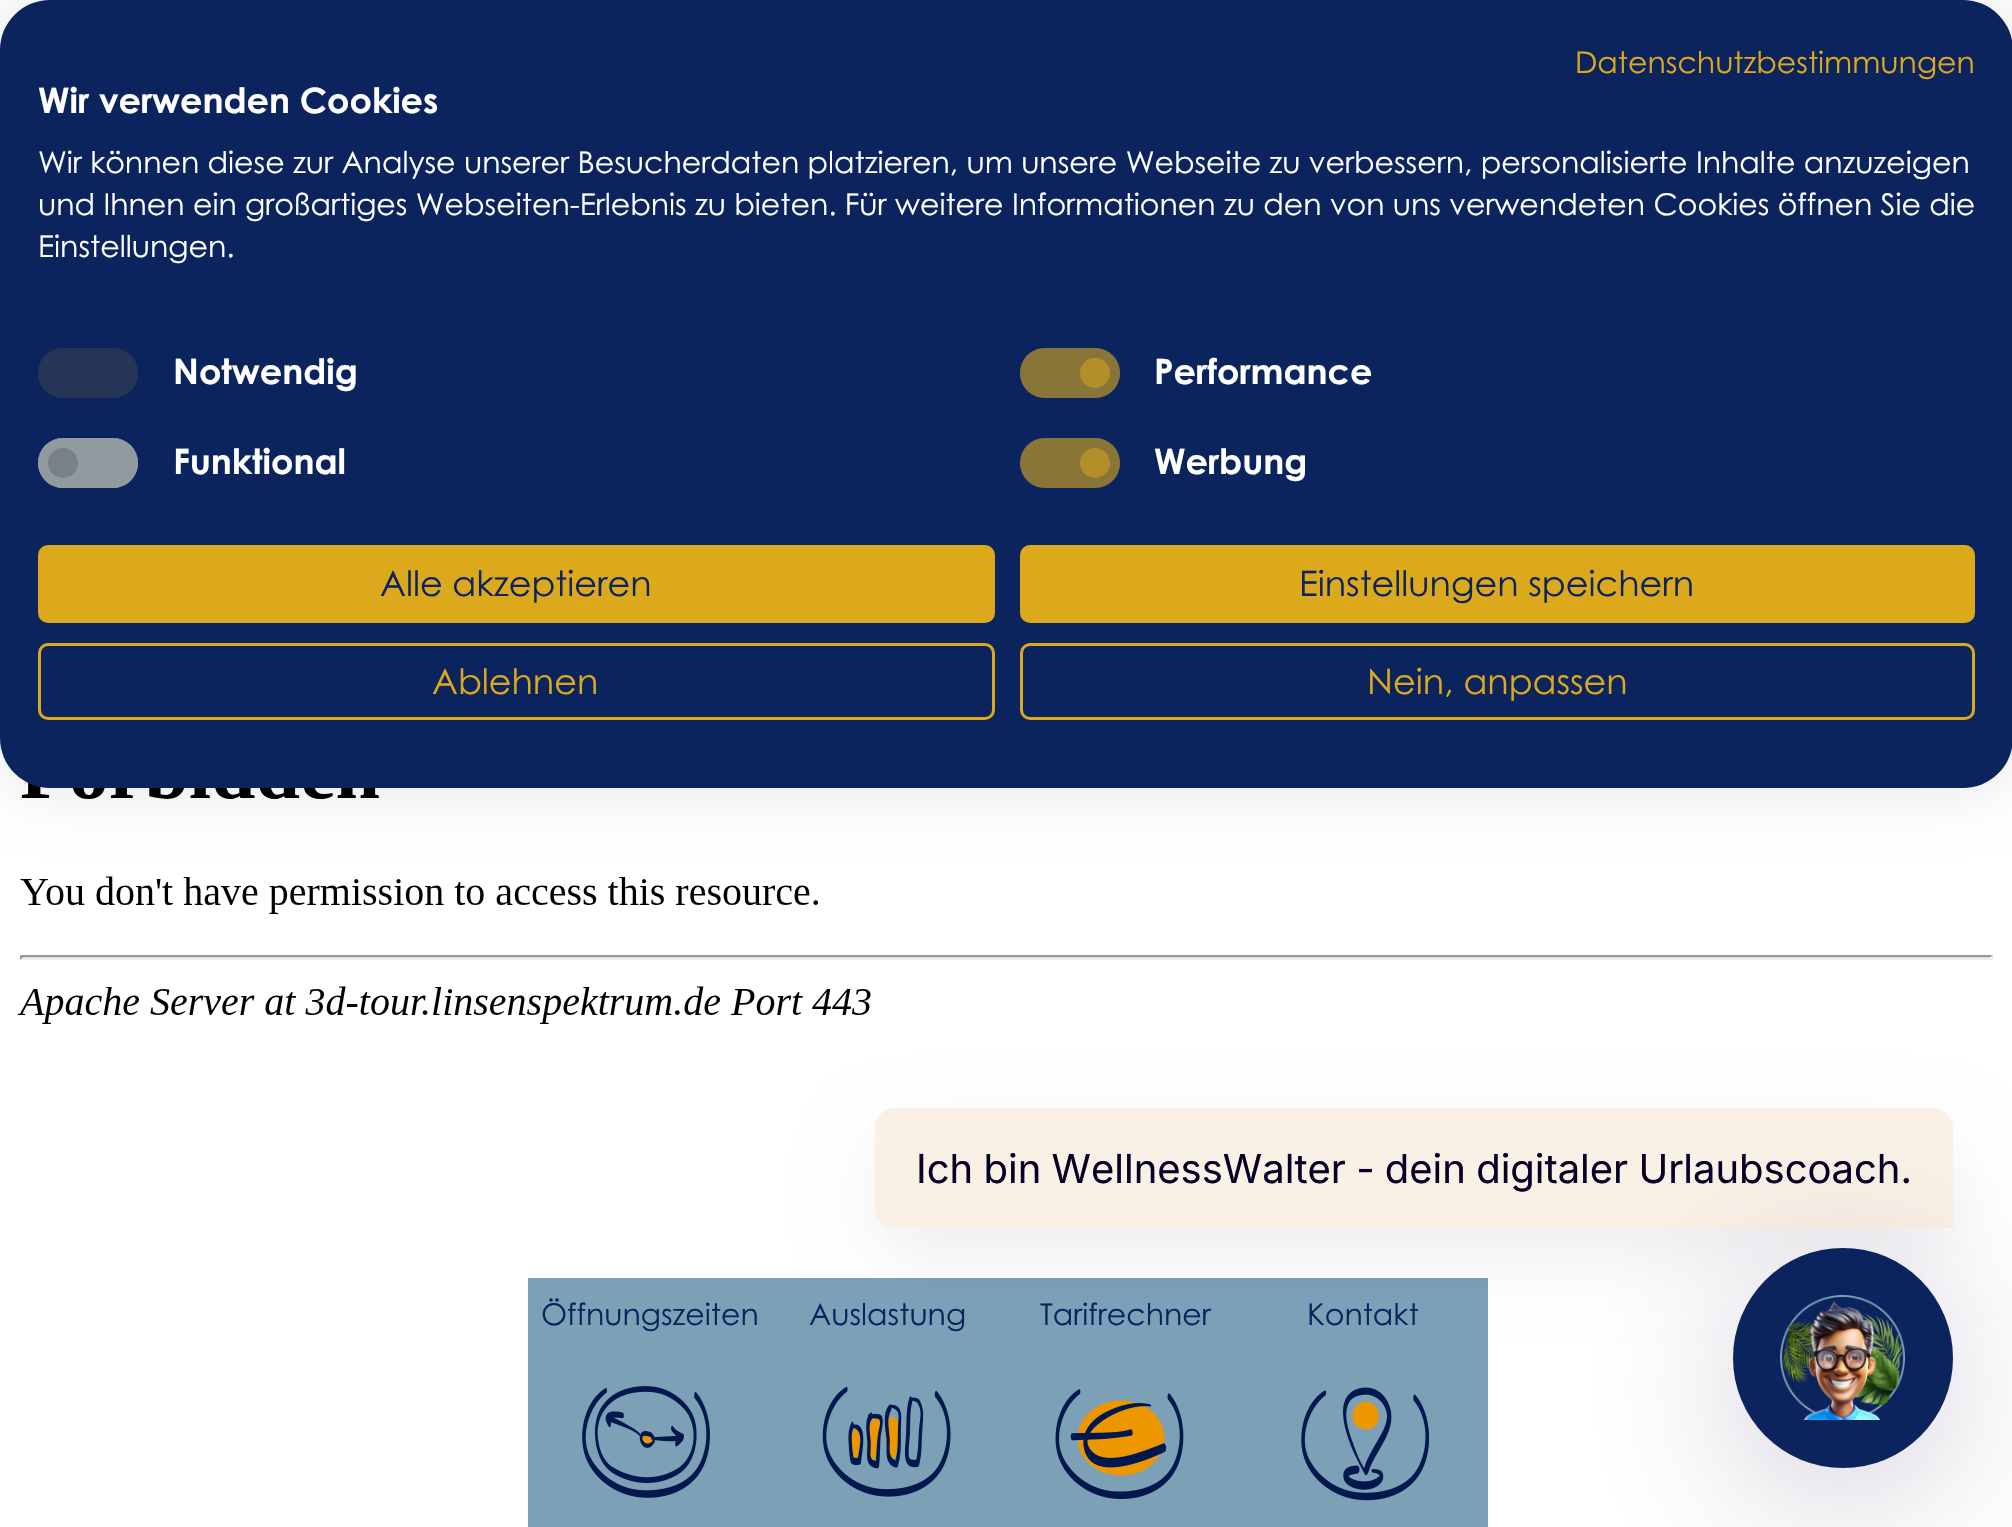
void draw(SkCanvas* canvas) {
    SkPaint paint;
    paint.setAntiAlias(true);
    auto face = [&](const char* family, int weight, float size, bool italic = false) {
        SkFontStyle style(weight, SkFontStyle::kNormal_Width,
            italic ? SkFontStyle::kItalic_Slant : SkFontStyle::kUpright_Slant);
        SkFont result(fontMgr->matchFamilyStyle(family, style), size);
        result.setSubpixel(true);
        return result;
    };
    auto write = [&](const char* s, float x, float y, const SkFont& font, SkColor color) {
        SkPaint ink(SkColor4f::FromColor(color));
        ink.setAntiAlias(true);
        canvas->drawString(s, x, y, font, ink);
    };
    auto writeSpaced = [&](const char* s, float x, float y, const SkFont& font, const SkPaint& ink, float letter, float word) {
        std::vector<SkGlyphID> glyphs(font.countText(s, strlen(s), SkTextEncoding::kUTF8));
        std::vector<float> xs(glyphs.size());
        font.textToGlyphs(s, strlen(s), SkTextEncoding::kUTF8, glyphs);
        font.getXPos(glyphs, xs, x);
        float extra = 0;
        for (size_t i = 0; i < glyphs.size(); i++) {
            xs[i] += extra;
            extra += letter + word * (glyphs[i] == font.unicharToGlyph(' '));
        }
        canvas->drawTextBlob(SkTextBlob::MakeFromPosHGlyphs(glyphs, xs, y, font), 0, 0, ink);
    };
    auto block = [&](float x, float y, float w, float h, SkColor color) {
        SkPaint ink(SkColor4f::FromColor(color));
        ink.setAntiAlias(true);
        canvas->drawRect(SkRect::MakeXYWH(x, y, w, h), ink);
    };
    auto card = [&](float x, float y, float w, float h, float radius, SkColor color) {
        SkPaint ink(SkColor4f::FromColor(color));
        ink.setAntiAlias(true);
        canvas->drawRoundRect(SkRect::MakeXYWH(x, y, w, h), radius, radius, ink);
    };
    auto paste = [&](const char* path, float x, float y, float w, float h) {
        auto image = SkImages::DeferredFromEncodedData(SkData::MakeFromFileName(path));
        canvas->drawImageRect(image, SkRect::MakeXYWH(x, y, w, h), SkSamplingOptions());
    };
    canvas->clear(SK_ColorWHITE);
    paste("pic1.png", 17, 782, 1976, 242);
    paint.setColor(SkColorSetARGB(26, 0, 0, 0));
    paint.setMaskFilter(SkMaskFilter::MakeBlur(kNormal_SkBlurStyle, 30));
    canvas->drawRoundRect(SkRect::MakeXYWH(0, 0, 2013, 788), 50, 50, paint);
    paint.setMaskFilter(nullptr);
    card(0, 0, 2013, 788, 50, SkColorSetRGB(12, 36, 94));
    auto kFont1 = face("Century Gothic", 400, 30);
    write("Datenschutzbestimmungen", 1575, 73, kFont1, SkColorSetRGB(219, 169, 27));
    auto kFont2 = face("Century Gothic", 700, 35);
    write("Wir verwenden Cookies", 38, 113, kFont2, SK_ColorWHITE);
    write("Wir können diese zur Analyse unserer Besucherdaten platzieren, um unsere Webseite zu verbessern, personalisierte Inhalte anzuzeigen", 38, 173, kFont1, SK_ColorWHITE);
    write("und Ihnen ein großartiges Webseiten-Erlebnis zu bieten. Für weitere Informationen zu den von uns verwendeten Cookies öffnen Sie die", 38, 215, kFont1, SK_ColorWHITE);
    write("Einstellungen.", 38, 257, kFont1, SK_ColorWHITE);
    paint.setColor(SkColorSetRGB(38, 53, 86));
    canvas->drawPath(SkPathBuilder().moveTo(63, 348).lineTo(113, 348).cubicTo(127, 348, 138, 359, 138, 373).cubicTo(138, 387, 127, 398, 113, 398).lineTo(63, 398).cubicTo(49, 398, 38, 387, 38, 373).cubicTo(38, 359, 49, 348, 63, 348).close().detach(), paint);
    write("Notwendig", 173, 384, kFont2, SK_ColorWHITE);
    card(1020, 348, 100, 50, 25, SkColorSetRGB(53, 63, 81));
    paint.setColor(SkColorSetRGB(136, 116, 54));
    canvas->drawCircle(1095, 373, 15, paint);
    paint.setColor(SkColorSetARGB(128, 219, 169, 27));
    canvas->drawPath(SkPathBuilder().moveTo(1045, 348).lineTo(1095, 348).cubicTo(1109, 348, 1120, 359, 1120, 373).cubicTo(1120, 387, 1109, 398, 1095, 398).lineTo(1045, 398).cubicTo(1031, 398, 1020, 387, 1020, 373).cubicTo(1020, 359, 1031, 348, 1045, 348).close().detach(), paint);
    write("Performance", 1154, 384, kFont2, SK_ColorWHITE);
    card(38, 438, 100, 50, 25, SkColorSetRGB(233, 236, 239));
    paint.setColor(SkColorSetRGB(146, 153, 159));
    canvas->drawCircle(63, 463, 15, paint);
    paint.setColor(SkColorSetARGB(179, 108, 117, 125));
    canvas->drawPath(SkPathBuilder().moveTo(63, 438).lineTo(113, 438).cubicTo(127, 438, 138, 449, 138, 463).cubicTo(138, 477, 127, 488, 113, 488).lineTo(63, 488).cubicTo(49, 488, 38, 477, 38, 463).cubicTo(38, 449, 49, 438, 63, 438).close().detach(), paint);
    write("Funktional", 173, 474, kFont2, SK_ColorWHITE);
    card(1020, 438, 100, 50, 25, SkColorSetRGB(53, 63, 81));
    paint.setColor(SkColorSetRGB(136, 116, 54));
    canvas->drawCircle(1095, 463, 15, paint);
    paint.setColor(SkColorSetARGB(128, 219, 169, 27));
    canvas->drawPath(SkPathBuilder().moveTo(1045, 438).lineTo(1095, 438).cubicTo(1109, 438, 1120, 449, 1120, 463).cubicTo(1120, 477, 1109, 488, 1095, 488).lineTo(1045, 488).cubicTo(1031, 488, 1020, 477, 1020, 463).cubicTo(1020, 449, 1031, 438, 1045, 438).close().detach(), paint);
    write("Werbung", 1154, 474, kFont2, SK_ColorWHITE);
    paint.setColor(SkColorSetRGB(219, 169, 27));
    canvas->drawRoundRect(SkRect::MakeXYWH(39.5f, 546.5f, 954, 75), 8.5f, 8.5f, paint);
    paint.setStyle(SkPaint::kStroke_Style);
    paint.setStrokeWidth(3);
    canvas->drawRoundRect(SkRect::MakeXYWH(39.5f, 546.5f, 954, 75), 8.5f, 8.5f, paint);
    auto kFont3 = face("Century Gothic", 400, 35);
    write("Alle akzeptieren", 380, 596, kFont3, SkColorSetRGB(12, 36, 94));
    paint.setStyle(SkPaint::kFill_Style);
    canvas->drawRoundRect(SkRect::MakeXYWH(1021.5f, 546.5f, 952, 75), 8.5f, 8.5f, paint);
    paint.setStyle(SkPaint::kStroke_Style);
    canvas->drawRoundRect(SkRect::MakeXYWH(1021.5f, 546.5f, 952, 75), 8.5f, 8.5f, paint);
    write("Einstellungen speichern", 1299, 596, kFont3, SkColorSetRGB(12, 36, 94));
    canvas->drawRoundRect(SkRect::MakeXYWH(39.5f, 644.5f, 954, 74), 8.5f, 8.5f, paint);
    write("Ablehnen", 432, 694, kFont3, SkColorSetRGB(219, 169, 27));
    canvas->drawRoundRect(SkRect::MakeXYWH(1021.5f, 644.5f, 952, 74), 8.5f, 8.5f, paint);
    write("Nein, anpassen", 1367, 694, kFont3, SkColorSetRGB(219, 169, 27));
    block(528, 1278, 960, 249, SkColorSetRGB(124, 161, 183));
    paint.setStyle(SkPaint::kFill_Style);
    paint.setColor(SkColorSetARGB(20, 6, 1, 39));
    paint.setMaskFilter(SkMaskFilter::MakeBlur(kNormal_SkBlurStyle, 40));
    canvas->drawRoundRect(SkRect::MakeXYWH(885, 1148, 1058, 100), 10, 10, paint);
    paint.setMaskFilter(nullptr);
    paint.setColor(SkColorSetRGB(249, 241, 230));
    canvas->drawPath(SkPathBuilder().moveTo(895, 1108).lineTo(1933, 1108).cubicTo(1944, 1108, 1953, 1117, 1953, 1128).lineTo(1953, 1228).lineTo(895, 1228).cubicTo(884, 1228, 875, 1219, 875, 1208).lineTo(875, 1128).cubicTo(875, 1117, 884, 1108, 895, 1108).close().detach(), paint);
    paint.setColor(SkColorSetARGB(61, 62, 47, 89));
    paint.setMaskFilter(SkMaskFilter::MakeBlur(kNormal_SkBlurStyle, 80));
    canvas->drawRoundRect(SkRect::MakeXYWH(1733, 1278, 220, 220), 110, 110, paint);
    paint.setMaskFilter(nullptr);
    paint.setColor(SkColorSetRGB(12, 36, 94));
    canvas->drawCircle(1843, 1358, 110, paint);
    paste("pic2.png", 1780, 1295, 125, 125);
    auto kFont4 = face("Inter", 400, 40);
    paint.setColor(SkColorSetRGB(6, 1, 39));
    writeSpaced("Ich bin WellnessWalter - dein digitaler Urlaubscoach.", 916, 1183, kFont4, paint, 0, -1);
    write("Öffnungszeiten", 541, 1325, kFont1, SkColorSetRGB(12, 36, 94));
    paste("pic3.png", 582, 1386, 128, 112);
    write("Auslastung", 809, 1325, kFont1, SkColorSetRGB(12, 36, 94));
    paste("pic4.png", 822, 1386, 129, 111);
    write("Tarifrechner", 1040, 1325, kFont1, SkColorSetRGB(12, 36, 94));
    paste("pic5.png", 1055, 1389, 129, 110);
    write("Kontakt", 1307, 1325, kFont1, SkColorSetRGB(12, 36, 94));
    paste("pic6.png", 1301, 1387, 129, 114);
}
